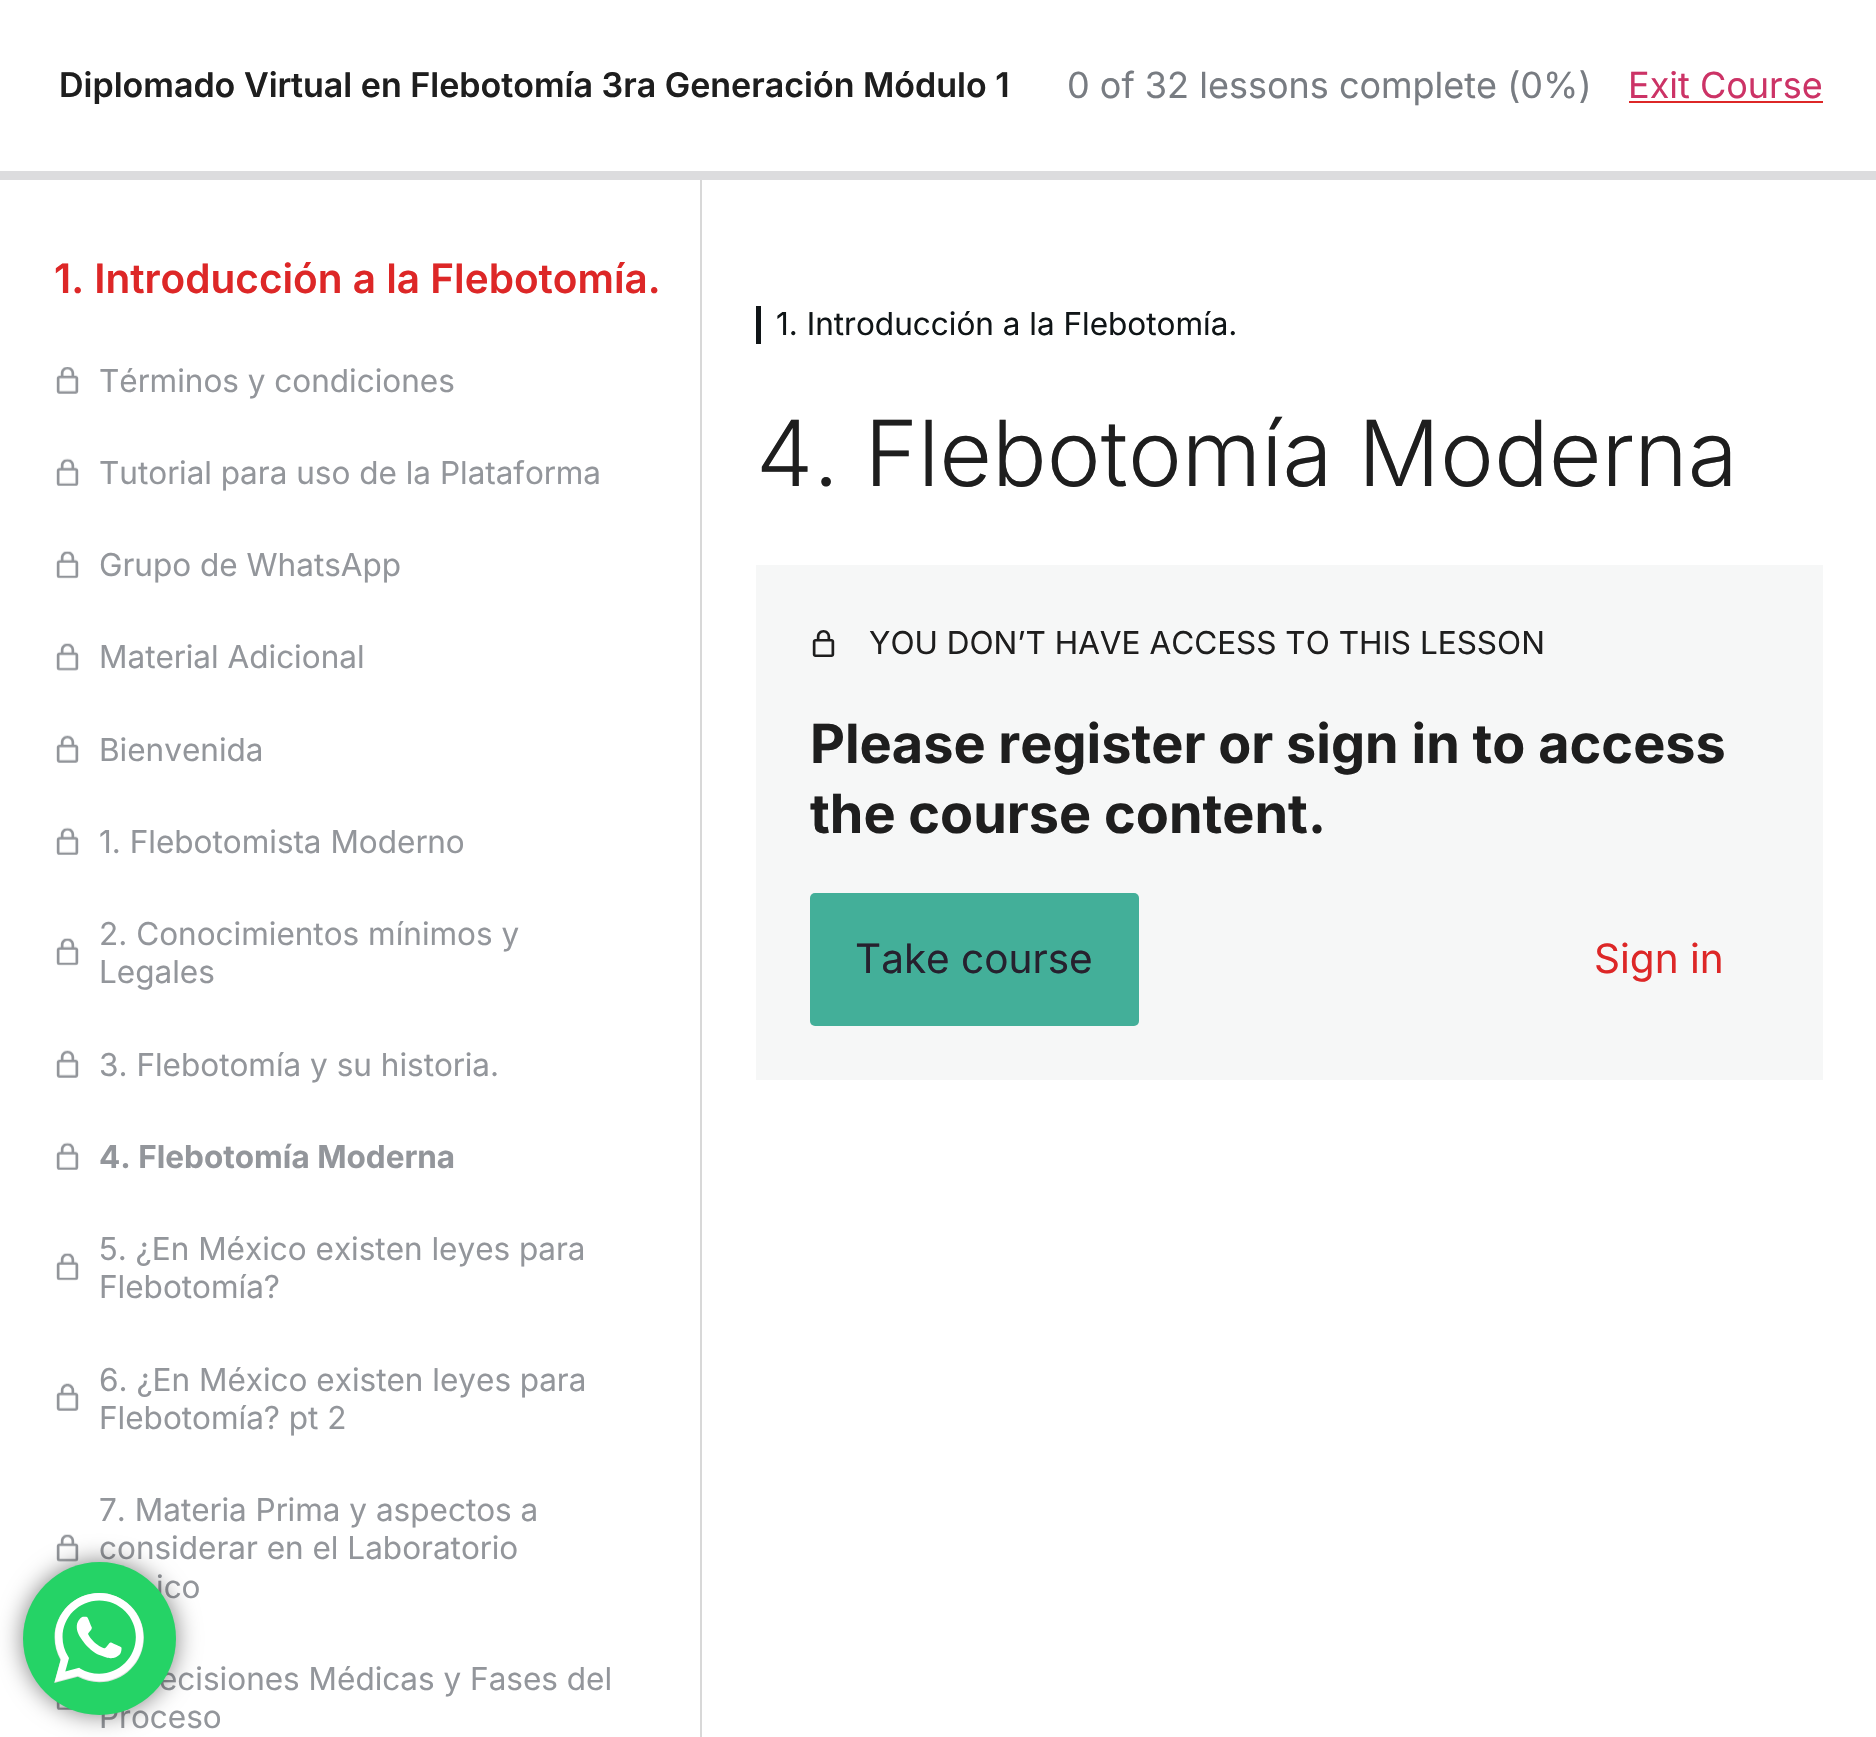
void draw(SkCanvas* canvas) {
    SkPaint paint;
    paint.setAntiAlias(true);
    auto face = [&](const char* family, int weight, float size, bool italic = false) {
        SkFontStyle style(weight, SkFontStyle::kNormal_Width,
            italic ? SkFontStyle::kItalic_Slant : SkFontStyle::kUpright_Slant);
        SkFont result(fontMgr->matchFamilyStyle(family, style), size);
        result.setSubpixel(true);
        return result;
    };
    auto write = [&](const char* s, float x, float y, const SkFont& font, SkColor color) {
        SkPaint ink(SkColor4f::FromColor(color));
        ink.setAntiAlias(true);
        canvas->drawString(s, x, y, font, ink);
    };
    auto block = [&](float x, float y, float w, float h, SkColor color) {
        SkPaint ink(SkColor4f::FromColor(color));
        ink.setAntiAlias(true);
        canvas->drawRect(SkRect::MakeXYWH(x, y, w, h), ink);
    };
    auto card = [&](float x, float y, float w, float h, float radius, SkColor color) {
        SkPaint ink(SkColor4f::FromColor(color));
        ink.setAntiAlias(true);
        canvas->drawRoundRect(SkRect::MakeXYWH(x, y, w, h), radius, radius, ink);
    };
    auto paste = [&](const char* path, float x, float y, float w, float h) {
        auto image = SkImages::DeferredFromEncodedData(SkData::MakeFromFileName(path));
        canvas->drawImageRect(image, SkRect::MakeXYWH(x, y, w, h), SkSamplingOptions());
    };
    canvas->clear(SK_ColorWHITE);
    auto kFont1 = face("Inter", 600, 34);
    write("Diplomado Virtual en Flebotomía 3ra Generación Módulo 1", 59, 97, kFont1, SkColorSetRGB(30, 30, 30));
    auto kFont2 = face("Inter", 400, 36);
    write("0 of 32 lessons complete (0%)", 1067, 98, kFont2, SkColorSetRGB(120, 124, 130));
    write("Exit Course", 1628, 98, kFont2, SkColorSetRGB(204, 51, 102));
    block(1629, 101, 194, 2, SkColorSetRGB(221, 39, 39));
    block(0, 171, 1876, 9, SkColorSetRGB(220, 220, 222));
    block(700, 180, 2, 1557, SkColorSetRGB(216, 216, 216));
    auto kFont3 = face("Inter", 600, 40.5f);
    write("1. Introducción a la Flebotomía.", 54, 293, kFont3, SkColorSetRGB(221, 39, 39));
    paste("pic1.png", 56, 367, 23, 27);
    auto kFont4 = face("Inter", 400, 31.5f);
    write("Términos y condiciones", 99, 392, kFont4, SkColorSetRGB(147, 150, 155));
    paste("pic2.png", 56, 458, 23, 28);
    write("Tutorial para uso de la Plataforma", 99, 484, kFont4, SkColorSetRGB(147, 150, 155));
    paste("pic3.png", 56, 551, 23, 28);
    write("Grupo de WhatsApp", 99, 576, kFont4, SkColorSetRGB(147, 150, 155));
    paste("pic4.png", 56, 643, 23, 28);
    write("Material Adicional", 99, 668, kFont4, SkColorSetRGB(147, 150, 155));
    paste("pic5.png", 56, 735, 23, 28);
    write("Bienvenida", 99, 761, kFont4, SkColorSetRGB(147, 150, 155));
    paste("pic2.png", 56, 827, 23, 28);
    write("1. Flebotomista Moderno", 99, 853, kFont4, SkColorSetRGB(147, 150, 155));
    paste("pic3.png", 56, 938, 23, 28);
    write("2. Conocimientos mínimos y", 99, 945, kFont4, SkColorSetRGB(147, 150, 155));
    write("Legales", 99, 983, kFont4, SkColorSetRGB(147, 150, 155));
    paste("pic5.png", 56, 1050, 23, 28);
    write("3. Flebotomía y su historia.", 99, 1076, kFont4, SkColorSetRGB(147, 150, 155));
    paste("pic2.png", 56, 1142, 23, 28);
    auto kFont5 = face("Inter", 700, 31.5f);
    write("4. Flebotomía Moderna", 99, 1168, kFont5, SkColorSetRGB(147, 150, 155));
    paste("pic3.png", 56, 1253, 23, 28);
    write("5. ¿En México existen leyes para", 99, 1260, kFont4, SkColorSetRGB(147, 150, 155));
    write("Flebotomía?", 99, 1298, kFont4, SkColorSetRGB(147, 150, 155));
    paste("pic6.png", 56, 1383, 23, 28);
    write("6. ¿En México existen leyes para", 99, 1391, kFont4, SkColorSetRGB(147, 150, 155));
    write("Flebotomía? pt 2", 99, 1429, kFont4, SkColorSetRGB(147, 150, 155));
    paste("pic4.png", 56, 1534, 23, 28);
    write("7. Materia Prima y aspectos a", 99, 1521, kFont4, SkColorSetRGB(147, 150, 155));
    write("considerar en el Laboratorio", 99, 1559, kFont4, SkColorSetRGB(147, 150, 155));
    write("ico", 156, 1598, kFont4, SkColorSetRGB(147, 150, 155));
    paste("pic7.png", 56, 1701, 17, 9);
    write("ecisiones Médicas y Fases del", 159, 1690, kFont4, SkColorSetRGB(147, 150, 155));
    write("Proceso", 99, 1728, kFont4, SkColorSetRGB(147, 150, 155));
    block(756, 306, 5, 38, SkColorSetRGB(16, 21, 23));
    write("1. Introducción a la Flebotomía.", 776, 335, kFont4, SkColorSetRGB(16, 21, 23));
    auto kFont6 = face("Inter", 300, 91);
    write("4. Flebotomía Moderna", 756, 486, kFont6, SkColorSetRGB(30, 30, 30));
    block(756, 565, 1067, 515, SkColorSetRGB(246, 247, 247));
    paste("pic8.png", 812, 630, 23, 27);
    write("YOU DON’T HAVE ACCESS TO THIS LESSON", 869, 654, kFont4, SkColorSetRGB(30, 30, 30));
    auto kFont7 = face("Inter", 700, 54);
    write("Please register or sign in to access", 810, 763, kFont7, SkColorSetRGB(30, 30, 30));
    write("the course content.", 810, 833, kFont7, SkColorSetRGB(30, 30, 30));
    card(810, 893, 329, 133, 5, SkColorSetRGB(67, 175, 153));
    auto kFont8 = face("Inter", 400, 40.5f);
    write("Take course", 855, 973, kFont8, SkColorSetRGB(38, 33, 46));
    write("Sign in", 1594, 973, kFont8, SkColorSetRGB(221, 39, 39));
    paint.setColor(SkColorSetARGB(128, 0, 0, 0));
    paint.setMaskFilter(SkMaskFilter::MakeBlur(kNormal_SkBlurStyle, 12.5f));
    canvas->drawRoundRect(SkRect::MakeXYWH(23, 1562, 153, 153), 76.5f, 76.5f, paint);
    paint.setMaskFilter(nullptr);
    paint.setColor(SkColorSetRGB(37, 211, 102));
    canvas->drawCircle(99.5f, 1638.5f, 76.5f, paint);
    paste("pic9.png", 54, 1593, 90, 90);
}
